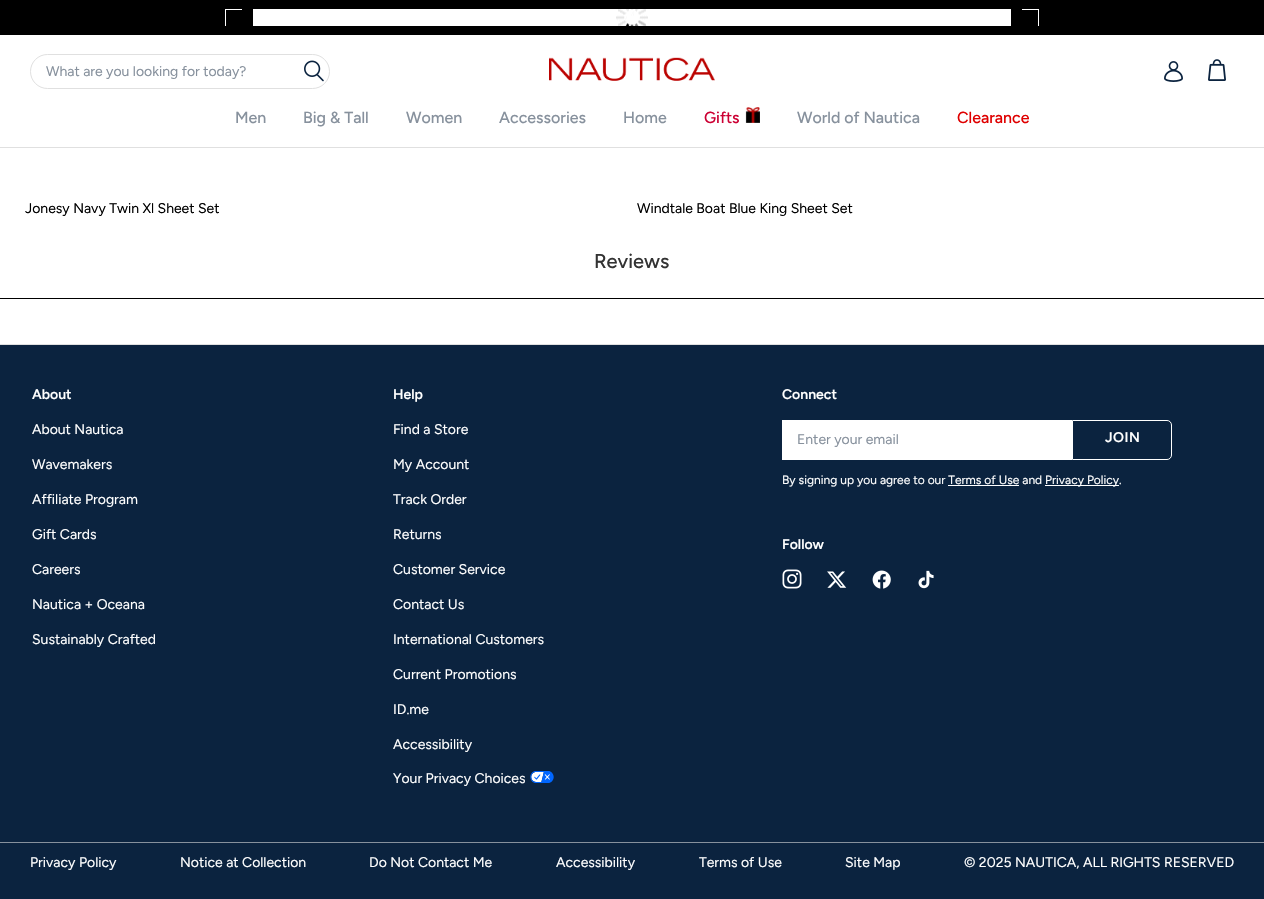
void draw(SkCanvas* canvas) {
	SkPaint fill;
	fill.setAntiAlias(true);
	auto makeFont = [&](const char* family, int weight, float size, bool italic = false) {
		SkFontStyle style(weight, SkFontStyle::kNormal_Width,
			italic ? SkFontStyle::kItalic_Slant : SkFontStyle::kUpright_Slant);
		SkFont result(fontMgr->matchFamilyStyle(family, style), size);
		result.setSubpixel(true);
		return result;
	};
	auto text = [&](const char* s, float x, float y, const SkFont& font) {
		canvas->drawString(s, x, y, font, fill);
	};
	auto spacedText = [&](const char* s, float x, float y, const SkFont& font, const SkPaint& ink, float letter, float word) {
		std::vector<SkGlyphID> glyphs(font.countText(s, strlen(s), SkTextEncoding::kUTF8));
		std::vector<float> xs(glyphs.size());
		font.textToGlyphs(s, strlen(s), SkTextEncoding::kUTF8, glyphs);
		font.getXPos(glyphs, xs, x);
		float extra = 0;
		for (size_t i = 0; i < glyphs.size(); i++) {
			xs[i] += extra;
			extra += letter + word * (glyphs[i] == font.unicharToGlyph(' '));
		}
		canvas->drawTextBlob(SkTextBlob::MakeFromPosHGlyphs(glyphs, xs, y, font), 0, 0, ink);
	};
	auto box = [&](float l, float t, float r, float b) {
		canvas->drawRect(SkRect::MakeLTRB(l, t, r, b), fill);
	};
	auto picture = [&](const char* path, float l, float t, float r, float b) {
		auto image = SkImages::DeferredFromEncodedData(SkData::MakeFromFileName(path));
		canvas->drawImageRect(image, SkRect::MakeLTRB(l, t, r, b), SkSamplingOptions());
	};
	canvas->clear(0xFFFFFFFF);
	fill.setColor(0xFF000000);
	box(0, 0, 1264, 35);
	fill.setColor(0xFFFFFFFF);
	box(225, 9, 242, 10);
	box(225, 9, 226, 26);
	box(253, 9, 1011, 26);
	picture("image0.png", 616, 9, 648, 26);
	box(1022, 9, 1039, 10);
	box(1038, 9, 1039, 26);
	fill.setColor(0xFFE0E0E0);
	box(0, 147, 1264, 148);
	fill.setStyle(SkPaint::kStroke_Style);
	fill.setStrokeWidth(1);
	canvas->drawRoundRect(SkRect::MakeLTRB(30.5f, 54.5f, 329.5f, 88.5f), 17, 17, fill);
	picture("image1.png", 304, 60, 324, 82);
	picture("image2.png", 549, 57, 715, 81);
	picture("image3.png", 1164, 61, 1183, 82);
	picture("image4.png", 1208, 59, 1226, 81);
	picture("image5.png", 745, 107, 760, 123);
	fill.setStyle(SkPaint::kFill_Style);
	fill.setColor(0xFF000000);
	box(0, 298, 1264, 299);
	fill.setColor(0xFF0B233F);
	box(0, 345, 1264, 899);
	fill.setColor(0xFFE0E0E0);
	box(0, 344, 1264, 345);
	picture("image6.png", 530, 771, 554, 783);
	fill.setColor(0xFFFFFFFF);
	box(782, 420, 1072, 460);
	fill.setStyle(SkPaint::kStroke_Style);
	canvas->drawPath(SkPathBuilder().moveTo(1072.5f, 420.5f).lineTo(1167, 420.5f).cubicTo(1169.5f, 420.5f, 1171.5f, 422.5f, 1171.5f, 425).lineTo(1171.5f, 455).cubicTo(1171.5f, 457.5f, 1169.5f, 459.5f, 1167, 459.5f).lineTo(1072.5f, 459.5f).close().detach(), fill);
	fill.setStyle(SkPaint::kFill_Style);
	box(1045, 485, 1119, 486);
	box(948, 485, 1019, 486);
	picture("image7.png", 782, 569, 802, 589);
	picture("image8.png", 827, 571, 847, 588);
	picture("image9.png", 872, 570, 891, 589);
	picture("image10.png", 918, 570, 934, 589);
	fill.setColor(0xFF87919D);
	box(0, 842, 1264, 843);
	auto font1 = makeFont("Figtree", 400, 14);
	text("What are you looking for today?", 46, 76, font1);
	auto font2 = makeFont("Figtree", 500, 16);
	text("Men", 235, 123, font2);
	text("Big & Tall", 303, 123, font2);
	text("Women", 406, 123, font2);
	text("Accessories", 499, 123, font2);
	text("Home", 623, 123, font2);
	fill.setColor(0xFFCC0033);
	text("Gifts", 704, 123, font2);
	fill.setColor(0xFF87919D);
	text("World of Nautica", 797, 123, font2);
	fill.setColor(0xFFDF0000);
	text("Clearance", 957, 123, font2);
	fill.setColor(0xFF000000);
	text("Jonesy Navy Twin Xl Sheet Set", 25, 213, font1);
	text("Windtale Boat Blue King Sheet Set", 637, 213, font1);
	auto font3 = makeFont("Figtree", 500, 20);
	fill.setColor(0xFF333333);
	text("Reviews", 594, 268, font3);
	auto font4 = makeFont("Figtree", 600, 14);
	fill.setColor(0xFFFFFFFF);
	text("About", 32, 399, font4);
	text("About Nautica", 32, 434, font1);
	text("Wavemakers", 32, 469, font1);
	text("Affiliate Program", 32, 504, font1);
	text("Gift Cards", 32, 539, font1);
	text("Careers", 32, 574, font1);
	text("Nautica + Oceana", 32, 609, font1);
	text("Sustainably Crafted", 32, 644, font1);
	text("Help", 393, 399, font4);
	text("Find a Store", 393, 434, font1);
	text("My Account", 393, 469, font1);
	text("Track Order", 393, 504, font1);
	text("Returns", 393, 539, font1);
	text("Customer Service", 393, 574, font1);
	text("Contact Us", 393, 609, font1);
	text("International Customers", 393, 644, font1);
	text("Current Promotions", 393, 679, font1);
	text("ID.me", 393, 714, font1);
	text("Accessibility", 393, 749, font1);
	text("Your Privacy Choices", 393, 783, font1);
	text("Connect", 782, 399, font4);
	fill.setColor(0xFF87919D);
	text("Enter your email", 797, 444, font1);
	fill.setColor(0xFFFFFFFF);
	spacedText("JOIN", 1105, 442, font4, fill, 0.5f, 0);
	auto font5 = makeFont("Figtree", 400, 12);
	text("By signing up you agree to our Terms of Use and", 782, 484, font5);
	text("Privacy Policy.", 1045, 484, font5);
	text("Follow", 782, 549, font4);
	text("Privacy Policy", 30, 867, font1);
	text("Notice at Collection", 180, 867, font1);
	text("Do Not Contact Me", 369, 867, font1);
	text("Accessibility", 556, 867, font1);
	text("Terms of Use", 699, 867, font1);
	text("Site Map", 845, 867, font1);
	text("© 2025 NAUTICA, ALL RIGHTS RESERVED", 964, 867, font1);
}
